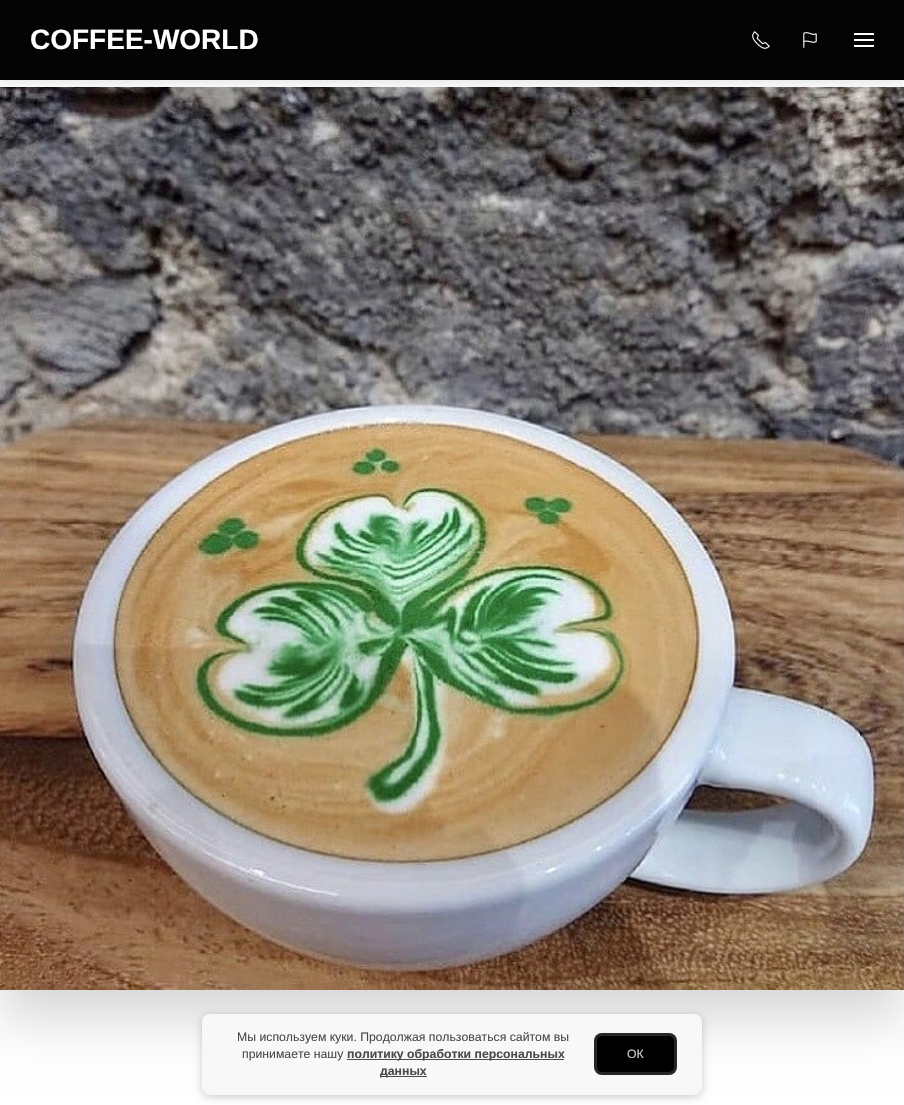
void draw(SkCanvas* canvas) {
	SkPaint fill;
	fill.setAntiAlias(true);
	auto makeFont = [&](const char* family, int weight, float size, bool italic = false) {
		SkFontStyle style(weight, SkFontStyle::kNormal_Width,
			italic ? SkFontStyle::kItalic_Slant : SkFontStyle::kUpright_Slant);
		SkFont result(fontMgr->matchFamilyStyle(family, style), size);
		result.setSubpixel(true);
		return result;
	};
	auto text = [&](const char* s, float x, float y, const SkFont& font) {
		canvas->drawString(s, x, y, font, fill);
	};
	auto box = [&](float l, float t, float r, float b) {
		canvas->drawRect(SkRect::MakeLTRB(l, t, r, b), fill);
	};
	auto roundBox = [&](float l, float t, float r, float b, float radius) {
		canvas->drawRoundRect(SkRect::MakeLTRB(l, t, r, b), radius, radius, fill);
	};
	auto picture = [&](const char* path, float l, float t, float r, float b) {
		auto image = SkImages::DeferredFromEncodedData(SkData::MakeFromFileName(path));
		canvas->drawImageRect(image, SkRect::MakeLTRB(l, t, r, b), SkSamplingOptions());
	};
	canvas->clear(0xFFFFFFFF);
	fill.setColor(0x29000000);
	fill.setMaskFilter(SkMaskFilter::MakeBlur(kNormal_SkBlurStyle, 25));
	canvas->drawRect(SkRect::MakeLTRB(0, 115, 904, 1018), fill);
	fill.setMaskFilter(nullptr);
	picture("image2.png", 0, 87, 904, 990);
	fill.setColor(0x14000000);
	fill.setMaskFilter(SkMaskFilter::MakeBlur(kNormal_SkBlurStyle, 4));
	canvas->drawRect(SkRect::MakeLTRB(0, 2, 904, 82), fill);
	fill.setMaskFilter(nullptr);
	fill.setColor(0xFF040404);
	box(0, 0, 904, 80);
	picture("image0.png", 752, 31, 770, 49);
	picture("image1.png", 803, 32, 817, 48);
	fill.setColor(0xFFFFFFFF);
	box(854, 33, 874, 35);
	box(854, 39, 874, 41);
	box(854, 45, 874, 47);
	fill.setColor(0x33000000);
	fill.setMaskFilter(SkMaskFilter::MakeBlur(kNormal_SkBlurStyle, 4));
	canvas->drawRoundRect(SkRect::MakeLTRB(202, 1016, 702, 1097), 8, 8, fill);
	fill.setMaskFilter(nullptr);
	fill.setColor(0xFFF8F8F8);
	roundBox(202, 1014, 702, 1095, 8);
	fill.setColor(0xFF4A4A4A);
	box(347, 1059, 564, 1060);
	box(380, 1076, 427, 1077);
	fill.setColor(0xFF000000);
	roundBox(594, 1033, 677, 1075, 8);
	fill.setStyle(SkPaint::kStroke_Style);
	fill.setStrokeWidth(3);
	fill.setColor(0x26FFFFFF);
	canvas->drawRoundRect(SkRect::MakeLTRB(595.5f, 1034.5f, 675.5f, 1073.5f), 6.5f, 6.5f, fill);
	auto font1 = makeFont("Liberation Sans", 700, 28);
	fill.setStyle(SkPaint::kFill_Style);
	fill.setColor(0xFFFFFFFF);
	text("COFFEE-WORLD", 30, 49, font1);
	auto font2 = makeFont("Liberation Sans", 400, 12.25f);
	fill.setColor(0xFF4A4A4A);
	text("Мы используем куки. Продолжая пользоваться сайтом вы", 237, 1041, font2);
	text("принимаете нашу", 242, 1058, font2);
	auto font3 = makeFont("Liberation Sans", 700, 12.25f);
	text("политику обработки персональных", 347, 1058, font3);
	text("данных", 380, 1075, font3);
	fill.setColor(0xFFCCCCCC);
	text("ОК", 627, 1058, font2);
}
